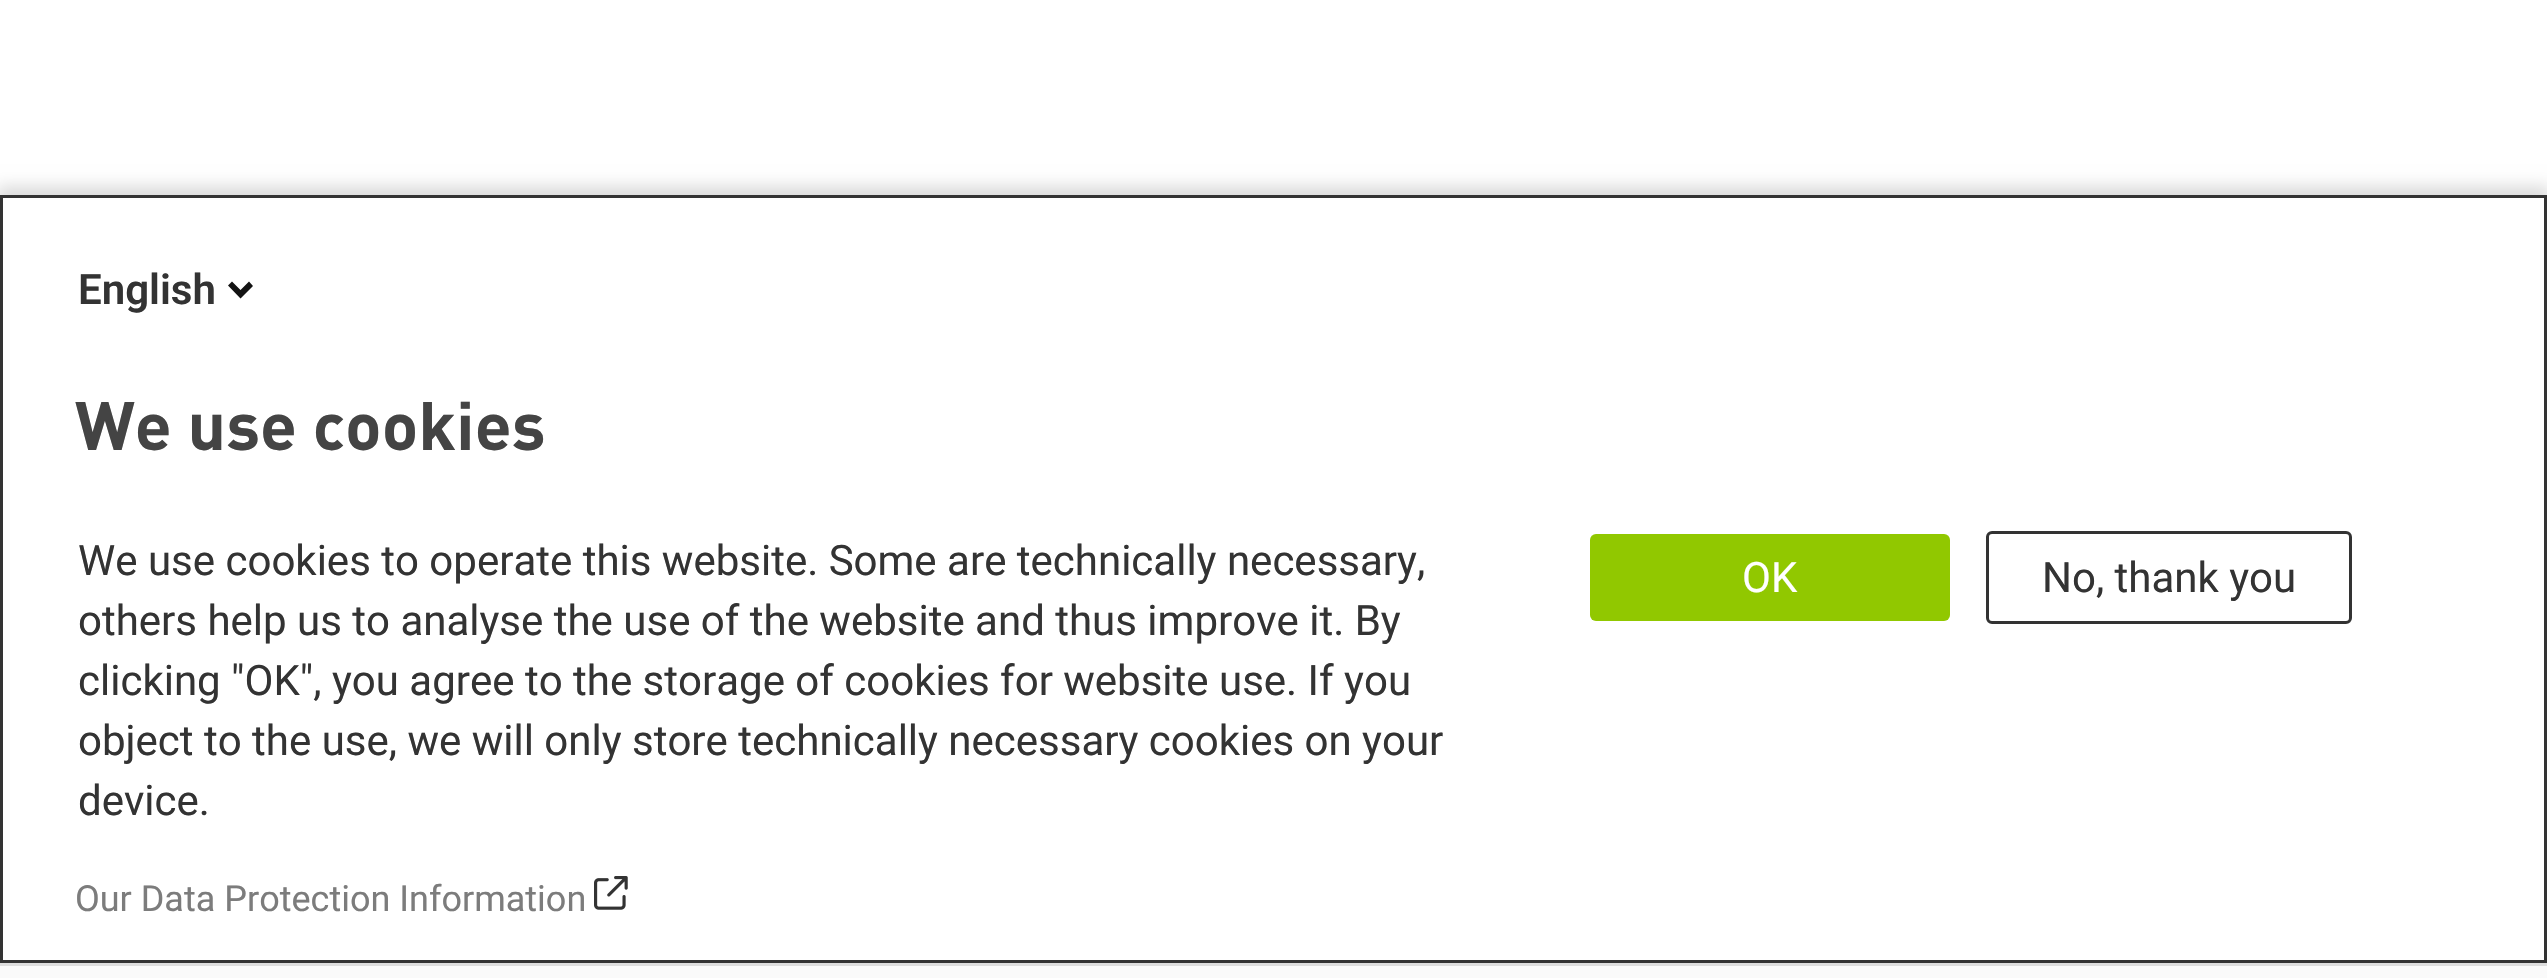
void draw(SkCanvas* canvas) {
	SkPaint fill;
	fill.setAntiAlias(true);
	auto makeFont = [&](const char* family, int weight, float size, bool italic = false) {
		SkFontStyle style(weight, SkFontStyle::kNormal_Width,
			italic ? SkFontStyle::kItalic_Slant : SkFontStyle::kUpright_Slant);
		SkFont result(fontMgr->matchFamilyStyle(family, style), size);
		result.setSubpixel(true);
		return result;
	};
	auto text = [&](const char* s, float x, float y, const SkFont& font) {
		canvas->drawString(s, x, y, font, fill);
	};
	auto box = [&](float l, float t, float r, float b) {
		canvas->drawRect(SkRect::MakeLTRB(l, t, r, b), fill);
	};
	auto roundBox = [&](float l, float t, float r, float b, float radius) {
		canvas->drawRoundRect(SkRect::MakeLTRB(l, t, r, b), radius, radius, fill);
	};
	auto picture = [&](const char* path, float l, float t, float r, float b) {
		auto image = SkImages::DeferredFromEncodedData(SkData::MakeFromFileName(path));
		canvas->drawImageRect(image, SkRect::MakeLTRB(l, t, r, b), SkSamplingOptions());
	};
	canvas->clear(0xFFFFFFFF);
	fill.setColor(0x24000000);
	fill.setMaskFilter(SkMaskFilter::MakeBlur(kNormal_SkBlurStyle, 7.5f));
	canvas->drawRect(SkRect::MakeLTRB(-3, 186, 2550, 975), fill);
	fill.setMaskFilter(nullptr);
	fill.setColor(0xFFFFFFFF);
	canvas->drawRect(SkRect::MakeLTRB(1.5f, 196.5f, 2545.5f, 961.5f), fill);
	fill.setStyle(SkPaint::kStroke_Style);
	fill.setStrokeWidth(3);
	fill.setColor(0xFF333333);
	canvas->drawRect(SkRect::MakeLTRB(1.5f, 196.5f, 2545.5f, 961.5f), fill);
	fill.setStyle(SkPaint::kFill_Style);
	fill.setColor(0xFF131313);
	canvas->drawPath(SkPathBuilder().moveTo(240.5f, 290).lineTo(249, 281.5f).lineTo(253, 286).lineTo(240.5f, 298.5f).lineTo(228, 285.5f).lineTo(232, 281.5f).close().detach(), fill);
	picture("image0.png", 594, 876, 628, 910);
	fill.setColor(0xFF91C800);
	roundBox(1590, 534, 1950, 621, 6);
	fill.setStyle(SkPaint::kStroke_Style);
	fill.setColor(0xFF333333);
	canvas->drawRoundRect(SkRect::MakeLTRB(1987.5f, 532.5f, 2350.5f, 622.5f), 4.5f, 4.5f, fill);
	fill.setStyle(SkPaint::kFill_Style);
	fill.setColor(0xFFFAFAFA);
	box(0, 966, 2547, 978);
	fill.setColor(0xFFDDDDDD);
	box(0, 963, 2547, 966);
	auto font1 = makeFont("Roboto", 600, 42);
	fill.setColor(0xFF333333);
	text("English", 78, 304, font1);
	auto font2 = makeFont("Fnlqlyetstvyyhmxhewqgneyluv", 700, 67.5f);
	fill.setColor(0xFF444444);
	text("We use cookies", 75, 450, font2);
	auto font3 = makeFont("Roboto", 400, 42);
	fill.setColor(0xFF333333);
	text("We use cookies to operate this website. Some are technically necessary,", 78, 575, font3);
	text("others help us to analyse the use of the website and thus improve it. By", 78, 635, font3);
	text("clicking \"OK\", you agree to the storage of cookies for website use. If you", 78, 695, font3);
	text("object to the use, we will only store technically necessary cookies on your", 78, 755, font3);
	text("device.", 78, 815, font3);
	auto font4 = makeFont("Roboto", 400, 36);
	fill.setColor(0xFF7C7C7C);
	text("Our Data Protection Information", 75, 911, font4);
	fill.setColor(0xFFFFFFFF);
	text("OK", 1742, 592, font3);
	fill.setColor(0xFF333333);
	text("No, thank you", 2042, 592, font3);
}
